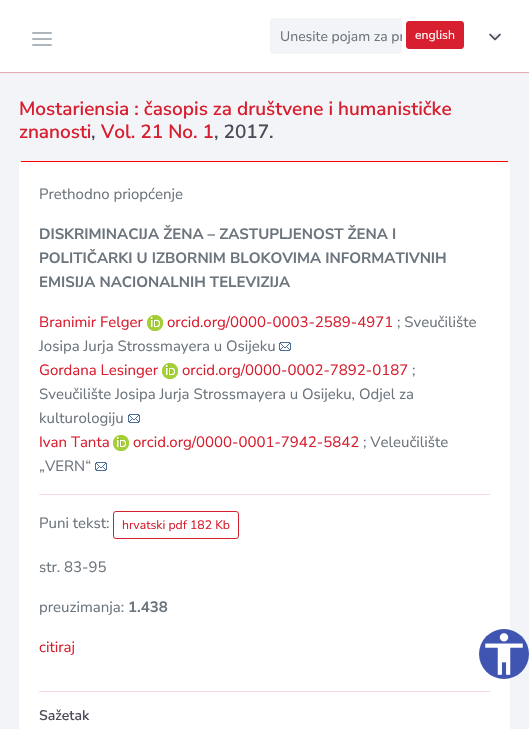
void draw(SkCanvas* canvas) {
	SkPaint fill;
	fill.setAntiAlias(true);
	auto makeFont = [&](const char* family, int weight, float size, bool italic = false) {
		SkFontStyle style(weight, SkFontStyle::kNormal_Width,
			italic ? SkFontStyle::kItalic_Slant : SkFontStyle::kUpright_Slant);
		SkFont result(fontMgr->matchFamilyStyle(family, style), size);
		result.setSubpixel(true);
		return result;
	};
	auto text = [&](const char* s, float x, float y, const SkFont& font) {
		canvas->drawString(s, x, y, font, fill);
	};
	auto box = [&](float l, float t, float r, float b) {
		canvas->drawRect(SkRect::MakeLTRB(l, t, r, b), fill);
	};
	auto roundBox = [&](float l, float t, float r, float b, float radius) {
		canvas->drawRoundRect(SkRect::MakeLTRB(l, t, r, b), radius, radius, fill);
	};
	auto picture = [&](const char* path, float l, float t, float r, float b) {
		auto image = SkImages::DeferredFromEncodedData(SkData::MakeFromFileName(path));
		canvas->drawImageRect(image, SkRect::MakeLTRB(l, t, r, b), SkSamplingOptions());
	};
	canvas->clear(0xFFF3F4F7);
	fill.setColor(0xFFF1B1B6);
	box(0, 72, 529, 73);
	fill.setColor(0x124B4B5A);
	fill.setMaskFilter(SkMaskFilter::MakeBlur(kNormal_SkBlurStyle, 0.5f));
	canvas->drawRect(SkRect::MakeLTRB(0, 1, 529, 73), fill);
	fill.setMaskFilter(nullptr);
	fill.setColor(0xFFFFFFFF);
	box(0, 0, 529, 72);
	fill.setStyle(SkPaint::kStroke_Style);
	fill.setStrokeWidth(2);
	fill.setStrokeCap(SkPaint::kRound_Cap);
	fill.setStrokeJoin(SkPaint::kRound_Join);
	fill.setColor(0xFFADB5BD);
	canvas->drawPath(SkPathBuilder().moveTo(33, 39).lineTo(51, 39).moveTo(33, 33).lineTo(51, 33).moveTo(33, 45).lineTo(51, 45).detach(), fill);
	fill.setStyle(SkPaint::kFill_Style);
	fill.setColor(0xFFF3F4F7);
	roundBox(270, 18, 402, 54, 4);
	fill.setColor(0xFFD81F30);
	canvas->drawRoundRect(SkRect::MakeLTRB(406.5f, 21.5f, 463.5f, 48.5f), 2.5f, 2.5f, fill);
	fill.setStyle(SkPaint::kStroke_Style);
	fill.setStrokeWidth(1);
	fill.setStrokeCap(SkPaint::kButt_Cap);
	fill.setStrokeJoin(SkPaint::kMiter_Join);
	canvas->drawRoundRect(SkRect::MakeLTRB(406.5f, 21.5f, 463.5f, 48.5f), 2.5f, 2.5f, fill);
	picture("image0.png", 489, 33, 501, 41);
	fill.setStyle(SkPaint::kFill_Style);
	fill.setColor(0xFFFFFFFF);
	roundBox(19, 161, 510, 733, 4);
	fill.setColor(0xFFFF0000);
	box(21, 161, 508, 162);
	picture("image1.png", 147, 315, 163, 331);
	picture("image2.png", 279, 342, 291, 351);
	picture("image1.png", 162, 363, 178, 379);
	picture("image2.png", 128, 414, 140, 423);
	picture("image1.png", 113, 435, 129, 451);
	picture("image2.png", 95, 462, 107, 471);
	fill.setColor(0xFFF8D9DC);
	box(39, 494, 490, 495);
	fill.setStyle(SkPaint::kStroke_Style);
	fill.setColor(0xFFD81F30);
	canvas->drawRoundRect(SkRect::MakeLTRB(113.5f, 511.5f, 238.5f, 538.5f), 2.5f, 2.5f, fill);
	fill.setStyle(SkPaint::kFill_Style);
	fill.setColor(0xFFF8D9DC);
	box(39, 691, 490, 692);
	fill.setColor(0xFF4054B2);
	canvas->drawCircle(504, 654, 25, fill);
	picture("image3.png", 485, 633, 523, 675);
	canvas->save();
	canvas->clipPath(SkPathBuilder().moveTo(274, 18).lineTo(398, 18).cubicTo(400, 18, 402, 20, 402, 22).lineTo(402, 50).cubicTo(402, 52, 400, 54, 398, 54).lineTo(274, 54).cubicTo(272, 54, 270, 52, 270, 50).lineTo(270, 22).cubicTo(270, 20, 272, 18, 274, 18).close().detach(), true);
	auto font1 = makeFont("Nunito Sans", 400, 14);
	fill.setColor(0xFF6C757D);
	text("Unesite pojam za pr", 280, 41, font1);
	canvas->restore();
	auto font2 = makeFont("Nunito Sans", 400, 12.25f);
	fill.setColor(0xFFFFFFFF);
	text("english", 415, 39, font2);
	auto font3 = makeFont("Nunito Sans", 600, 19);
	fill.setColor(0xFFD81F30);
	text("Mostariensia : časopis za društvene i humanističke", 19, 115, font3);
	text("znanosti", 19, 138, font3);
	fill.setColor(0xFF4B4B5A);
	text(",", 91, 138, font3);
	fill.setColor(0xFFD81F30);
	text("Vol. 21 No. 1", 101, 138, font3);
	fill.setColor(0xFF4B4B5A);
	text(", 2017.", 214, 138, font3);
	auto font4 = makeFont("Nunito Sans", 400, 15);
	fill.setColor(0xFF6C757D);
	text("Prethodno priopćenje", 39, 199, font4);
	auto font5 = makeFont("Nunito Sans", 700, 15);
	text("DISKRIMINACIJA ŽENA – ZASTUPLJENOST ŽENA I", 39, 239, font5);
	text("POLITIČARKI U IZBORNIM BLOKOVIMA INFORMATIVNIH", 39, 263, font5);
	text("EMISIJA NACIONALNIH TELEVIZIJA", 39, 287, font5);
	fill.setColor(0xFFD81F30);
	text("Branimir Felger", 39, 327, font4);
	text("orcid.org/0000-0003-2589-4971", 167, 327, font4);
	fill.setColor(0xFF6C757D);
	text("; Sveučilište", 397, 327, font4);
	text("Josipa Jurja Strossmayera u Osijeku", 39, 351, font4);
	fill.setColor(0xFFD81F30);
	text("Gordana Lesinger", 39, 375, font4);
	text("orcid.org/0000-0002-7892-0187", 182, 375, font4);
	fill.setColor(0xFF6C757D);
	text(";", 412, 375, font4);
	text("Sveučilište Josipa Jurja Strossmayera u Osijeku, Odjel za", 39, 399, font4);
	text("kulturologiju", 39, 423, font4);
	fill.setColor(0xFFD81F30);
	text("Ivan Tanta", 39, 447, font4);
	text("orcid.org/0000-0001-7942-5842", 133, 447, font4);
	fill.setColor(0xFF6C757D);
	text("; Veleučilište", 363, 447, font4);
	text("„VERN“", 39, 471, font4);
	text("Puni tekst:", 39, 528, font4);
	fill.setColor(0xFFD81F30);
	text("hrvatski pdf 182 Kb", 122, 529, font2);
	fill.setColor(0xFF6C757D);
	text("str. 83-95", 39, 572, font4);
	text("preuzimanja:", 39, 612, font4);
	text("1.438", 128, 612, font5);
	fill.setColor(0xFFD81F30);
	text("citiraj", 39, 652, font4);
	auto font6 = makeFont("Nunito Sans", 600, 14);
	fill.setColor(0xFF4B4B5A);
	text("Sažetak", 39, 720, font6);
}
